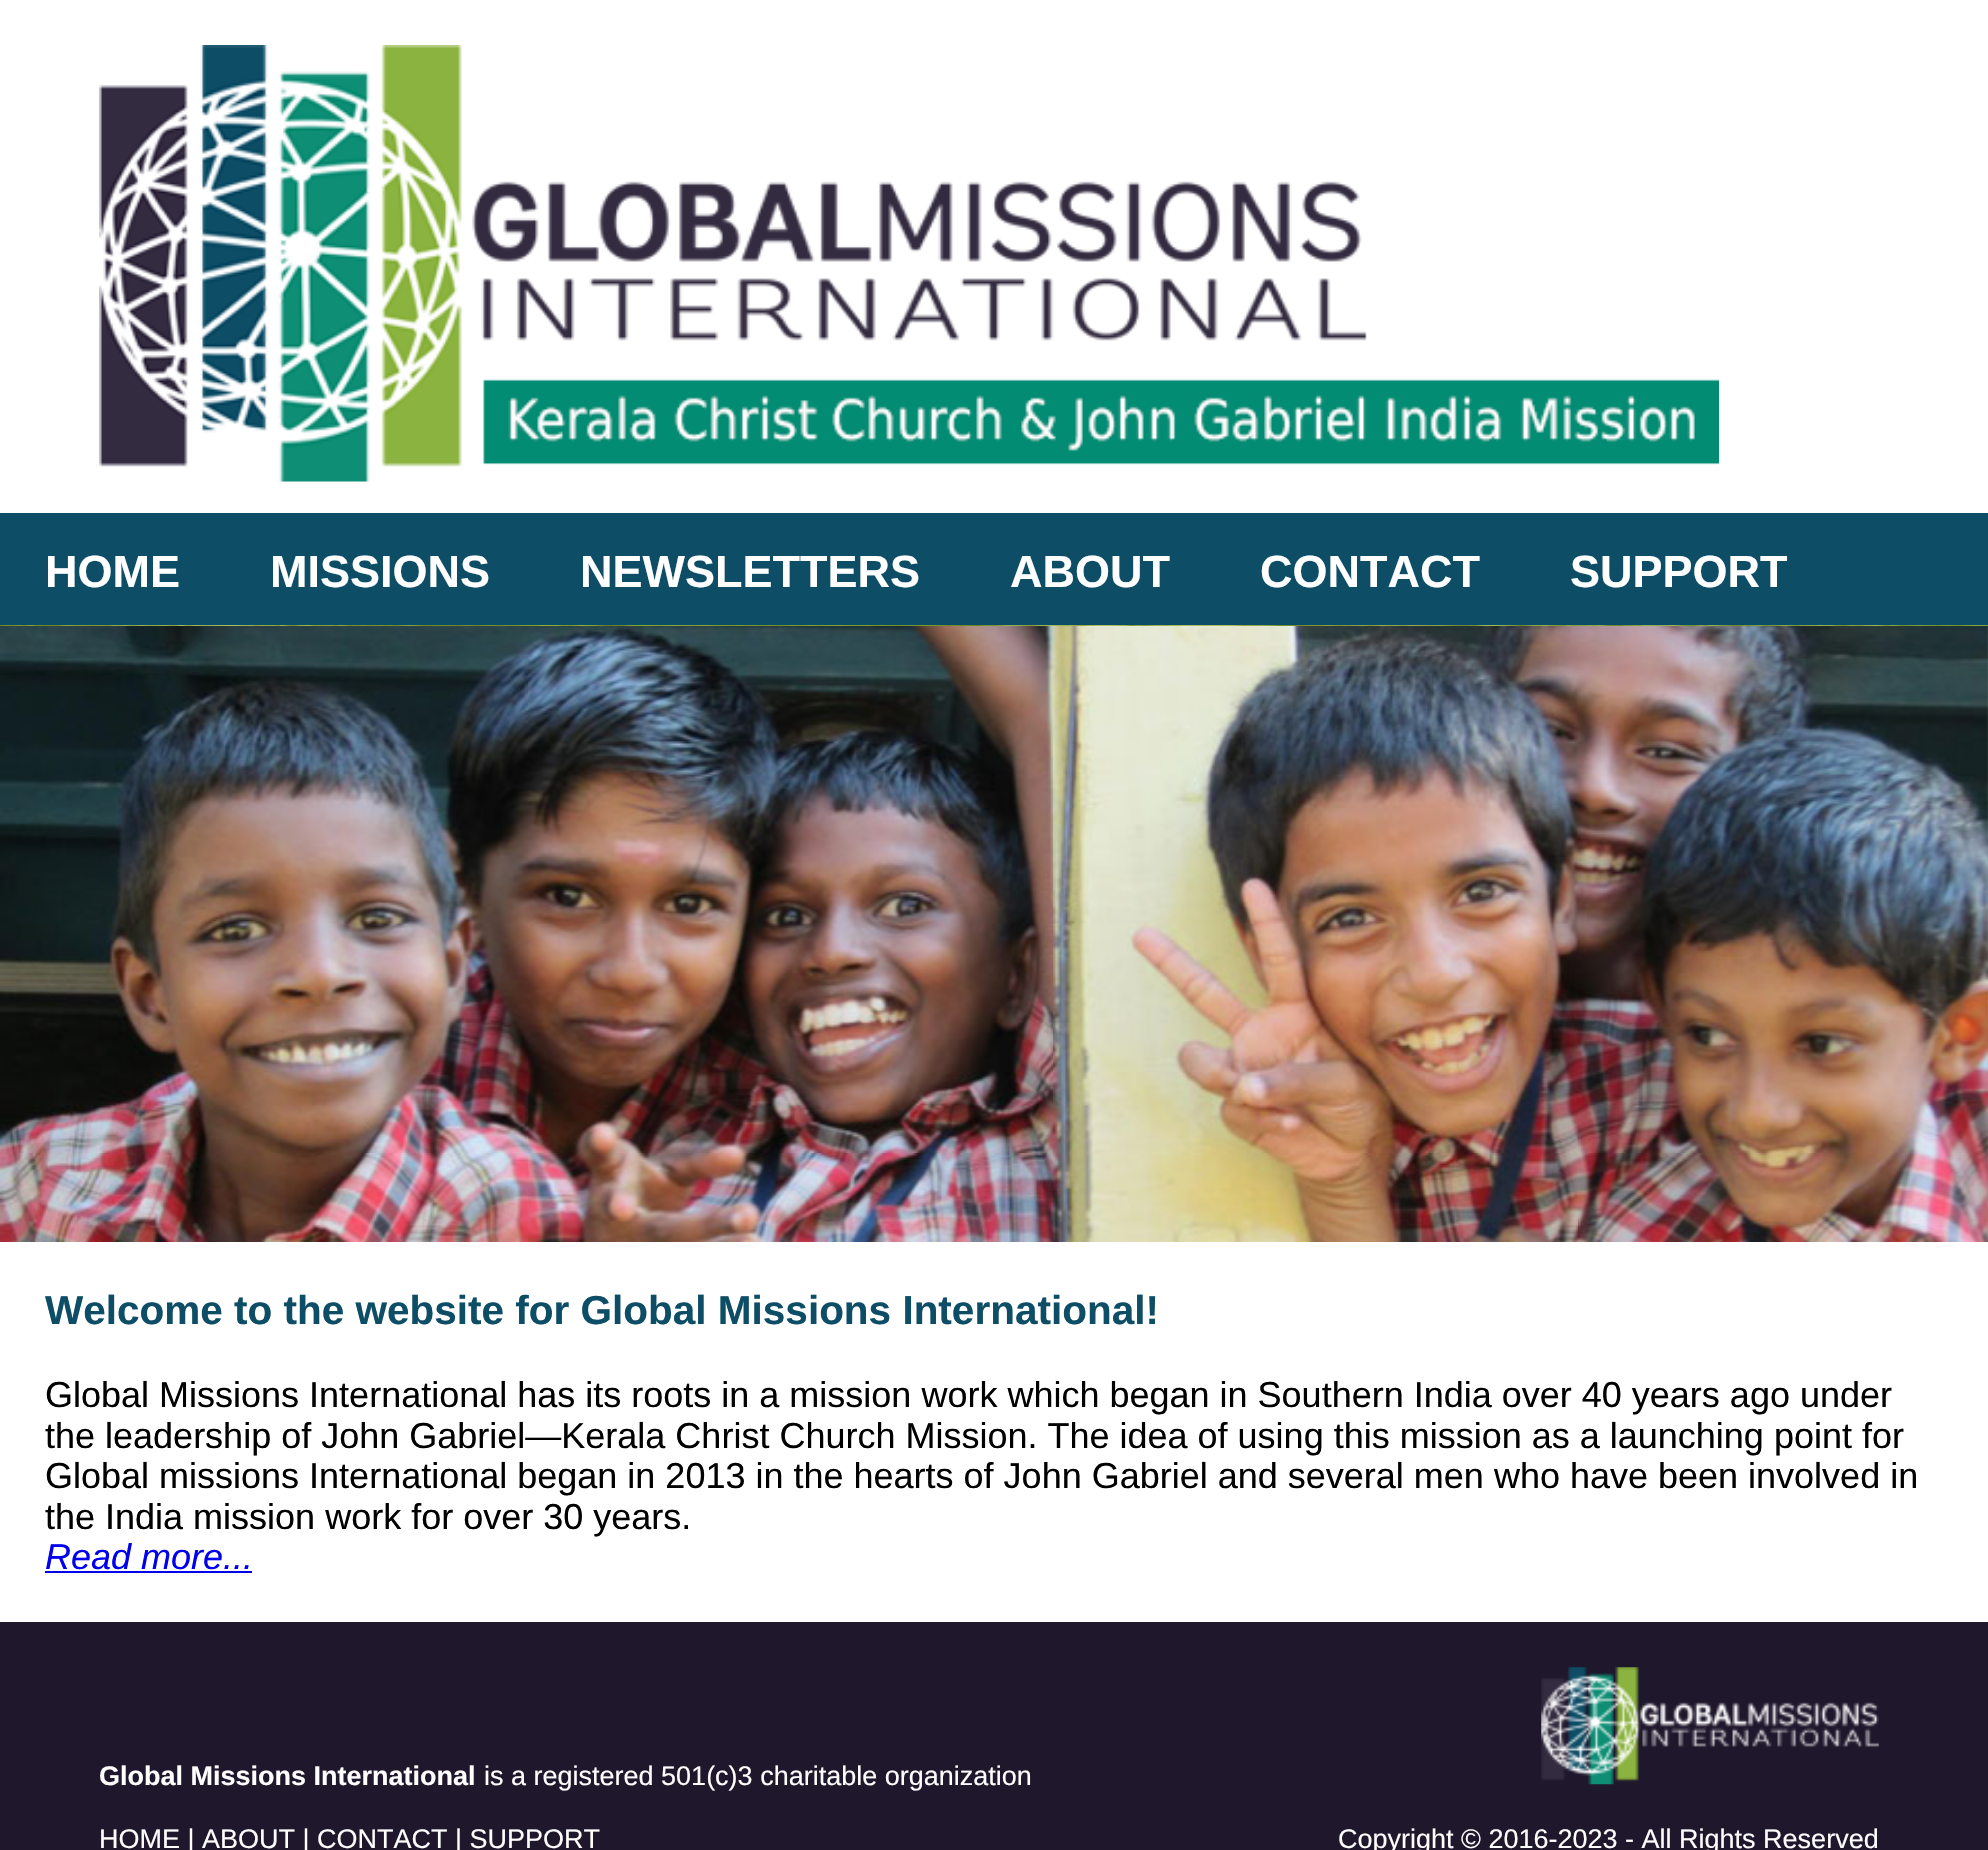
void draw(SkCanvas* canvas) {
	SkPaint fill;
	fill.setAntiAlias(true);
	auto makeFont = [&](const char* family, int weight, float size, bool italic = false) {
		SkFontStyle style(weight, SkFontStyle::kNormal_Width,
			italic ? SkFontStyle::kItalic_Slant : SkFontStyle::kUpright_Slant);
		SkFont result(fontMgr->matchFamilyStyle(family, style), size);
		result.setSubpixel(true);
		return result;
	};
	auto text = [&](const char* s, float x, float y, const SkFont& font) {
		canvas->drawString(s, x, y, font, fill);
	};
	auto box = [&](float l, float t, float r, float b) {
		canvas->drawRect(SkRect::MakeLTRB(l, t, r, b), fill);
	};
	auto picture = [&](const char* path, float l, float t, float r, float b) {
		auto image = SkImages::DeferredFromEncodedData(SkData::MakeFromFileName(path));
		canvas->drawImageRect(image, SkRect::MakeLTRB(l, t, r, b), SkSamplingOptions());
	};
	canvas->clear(0xFFFFFFFF);
	picture("image0.png", 99, 45, 1719, 482);
	fill.setColor(0xFF0D4D66);
	box(0, 513, 1988, 625);
	picture("image1.png", 0, 625, 1988, 1242);
	picture("image2.png", 0, 626, 1988, 1242);
	fill.setColor(0xFF0000EE);
	box(45, 1571, 252, 1573);
	fill.setColor(0xFF1F172C);
	box(0, 1622, 1988, 1850);
	picture("image3.png", 1541, 1667, 1879, 1785);
	auto font1 = makeFont("Liberation Sans", 700, 45);
	fill.setColor(0xFFFFFFFF);
	text("HOME", 45, 587, font1);
	text("MISSIONS", 270, 587, font1);
	text("NEWSLETTERS", 580, 587, font1);
	text("ABOUT", 1010, 587, font1);
	text("CONTACT", 1260, 587, font1);
	text("SUPPORT", 1570, 587, font1);
	auto font2 = makeFont("Liberation Sans", 700, 40.5f);
	fill.setColor(0xFF0D4D66);
	text("Welcome to the website for Global Missions International!", 45, 1324, font2);
	auto font3 = makeFont("Liberation Sans", 400, 36);
	fill.setColor(0xFF000000);
	text("Global Missions International has its roots in a mission work which began in Southern India over 40 years ago under", 45, 1407, font3);
	text("the leadership of John Gabriel—Kerala Christ Church Mission. The idea of using this mission as a launching point for", 45, 1448, font3);
	text("Global missions International began in 2013 in the hearts of John Gabriel and several men who have been involved in", 45, 1488, font3);
	text("the India mission work for over 30 years.", 45, 1529, font3);
	auto font4 = makeFont("Liberation Sans", 400, 36, true);
	fill.setColor(0xFF0000EE);
	text("Read more...", 45, 1569, font4);
	auto font5 = makeFont("Liberation Sans", 700, 27);
	fill.setColor(0xFFFFFFFF);
	text("Global Missions International", 99, 1785, font5);
	auto font6 = makeFont("Liberation Sans", 400, 27);
	text("is a registered 501(c)3 charitable organization", 484, 1785, font6);
	text("HOME | ABOUT | CONTACT | SUPPORT", 99, 1848, font6);
	text("Copyright © 2016-2023 - All Rights Reserved", 1338, 1848, font6);
}
